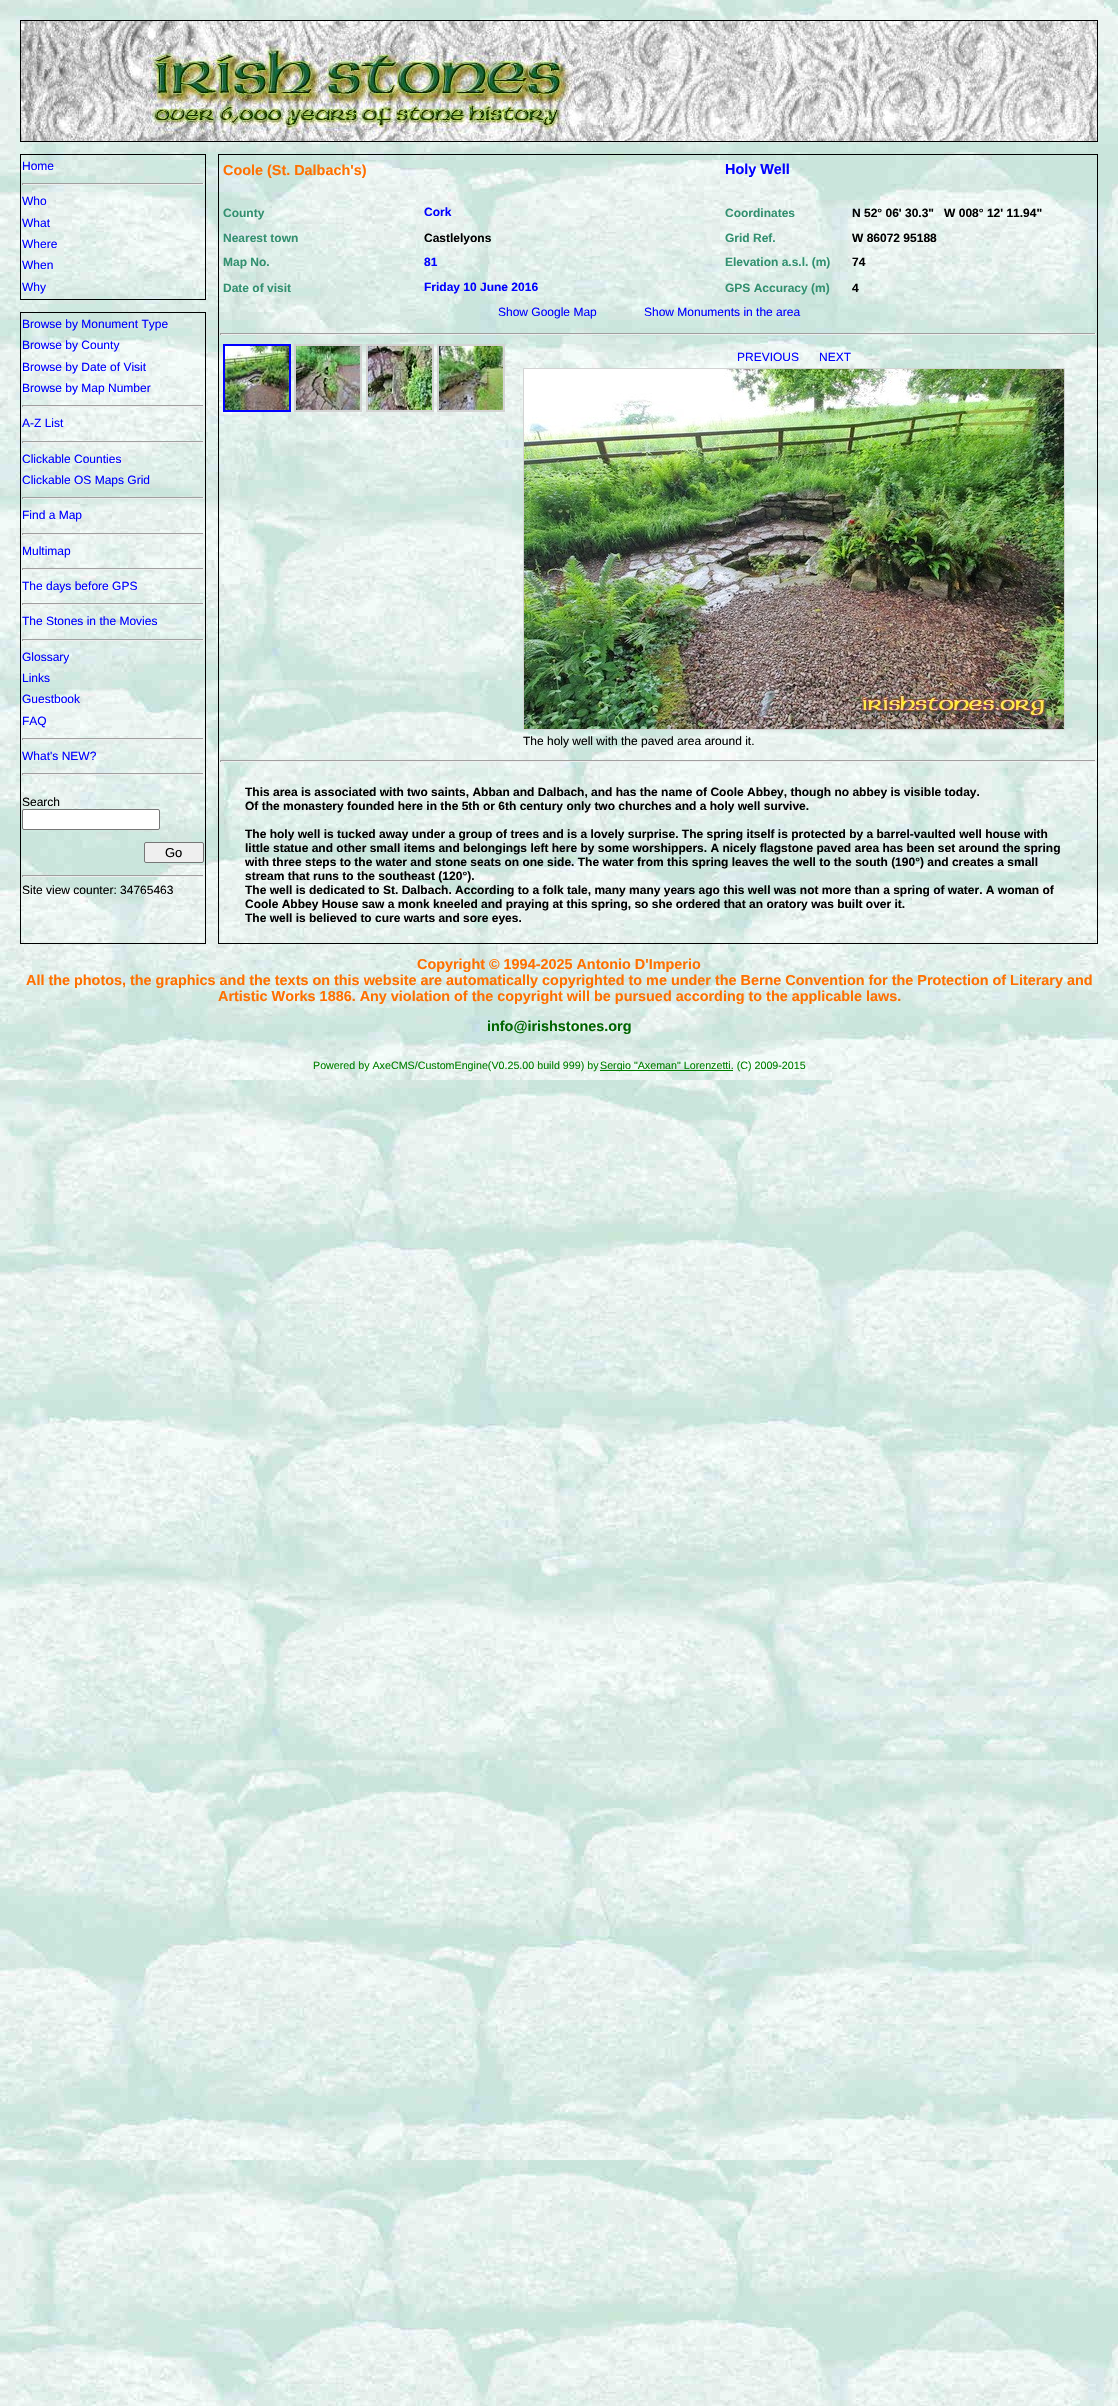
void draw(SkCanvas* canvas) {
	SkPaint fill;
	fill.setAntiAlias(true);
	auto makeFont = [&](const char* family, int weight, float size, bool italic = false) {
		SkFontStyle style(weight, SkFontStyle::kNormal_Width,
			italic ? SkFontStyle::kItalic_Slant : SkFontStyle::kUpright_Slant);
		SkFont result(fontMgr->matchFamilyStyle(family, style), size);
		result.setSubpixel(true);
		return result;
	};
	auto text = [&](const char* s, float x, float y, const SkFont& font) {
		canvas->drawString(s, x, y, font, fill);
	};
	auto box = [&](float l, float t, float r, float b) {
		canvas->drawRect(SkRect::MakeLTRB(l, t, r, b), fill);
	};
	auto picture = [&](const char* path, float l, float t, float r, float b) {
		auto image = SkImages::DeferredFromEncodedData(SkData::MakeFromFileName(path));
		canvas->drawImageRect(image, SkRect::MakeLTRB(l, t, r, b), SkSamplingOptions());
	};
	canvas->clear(0xFFFFFFFF);
	picture("image0.png", 0, 0, 1118, 2406);
	picture("image1.png", 21, 21, 1097, 141);
	fill.setStyle(SkPaint::kStroke_Style);
	fill.setStrokeWidth(1);
	fill.setColor(0xFF000000);
	canvas->drawRect(SkRect::MakeLTRB(20.5f, 20.5f, 1097.5f, 141.5f), fill);
	canvas->drawRect(SkRect::MakeLTRB(20.5f, 154.5f, 205.5f, 299.5f), fill);
	fill.setStyle(SkPaint::kFill_Style);
	fill.setColor(0xFF9F9F9F);
	box(22, 183, 204, 184);
	fill.setColor(0xFFEEEEEE);
	box(203, 183, 204, 185);
	box(22, 184, 204, 185);
	fill.setColor(0xFF9F9F9F);
	box(22, 183, 23, 185);
	fill.setStyle(SkPaint::kStroke_Style);
	fill.setColor(0xFF000000);
	canvas->drawRect(SkRect::MakeLTRB(218.5f, 154.5f, 1097.5f, 943.5f), fill);
	fill.setStyle(SkPaint::kFill_Style);
	fill.setColor(0xFF9F9F9F);
	box(220, 333, 1096, 334);
	fill.setColor(0xFFEEEEEE);
	box(1095, 333, 1096, 335);
	box(220, 334, 1096, 335);
	fill.setColor(0xFF9F9F9F);
	box(220, 333, 221, 335);
	fill.setStyle(SkPaint::kStroke_Style);
	fill.setStrokeWidth(2);
	fill.setColor(0xFF0000FF);
	canvas->drawRect(SkRect::MakeLTRB(224, 345, 290, 411), fill);
	fill.setColor(0xFFD3D3D3);
	canvas->drawRect(SkRect::MakeLTRB(295, 345, 361, 411), fill);
	canvas->drawRect(SkRect::MakeLTRB(367, 345, 433, 411), fill);
	canvas->drawRect(SkRect::MakeLTRB(438, 345, 504, 411), fill);
	picture("image2.png", 225, 346, 289, 410);
	picture("image3.png", 296, 346, 360, 410);
	picture("image4.png", 368, 346, 432, 410);
	picture("image5.png", 439, 346, 503, 410);
	fill.setStrokeWidth(1);
	canvas->drawRect(SkRect::MakeLTRB(523.5f, 368.5f, 1064.5f, 729.5f), fill);
	picture("image6.png", 524, 369, 1064, 729);
	fill.setStyle(SkPaint::kFill_Style);
	fill.setColor(0xFF9F9F9F);
	box(220, 760, 1096, 761);
	fill.setColor(0xFFEEEEEE);
	box(1095, 760, 1096, 762);
	box(220, 761, 1096, 762);
	fill.setColor(0xFF9F9F9F);
	box(220, 760, 221, 762);
	fill.setStyle(SkPaint::kStroke_Style);
	fill.setColor(0xFF000000);
	canvas->drawRect(SkRect::MakeLTRB(20.5f, 312.5f, 205.5f, 943.5f), fill);
	fill.setStyle(SkPaint::kFill_Style);
	fill.setColor(0xFF9F9F9F);
	box(22, 405, 204, 406);
	fill.setColor(0xFFEEEEEE);
	box(203, 405, 204, 407);
	box(22, 406, 204, 407);
	fill.setColor(0xFF9F9F9F);
	box(22, 405, 23, 407);
	box(22, 441, 204, 442);
	fill.setColor(0xFFEEEEEE);
	box(203, 441, 204, 443);
	box(22, 442, 204, 443);
	fill.setColor(0xFF9F9F9F);
	box(22, 441, 23, 443);
	box(22, 497, 204, 498);
	fill.setColor(0xFFEEEEEE);
	box(203, 497, 204, 499);
	box(22, 498, 204, 499);
	fill.setColor(0xFF9F9F9F);
	box(22, 497, 23, 499);
	box(22, 533, 204, 534);
	fill.setColor(0xFFEEEEEE);
	box(203, 533, 204, 535);
	box(22, 534, 204, 535);
	fill.setColor(0xFF9F9F9F);
	box(22, 533, 23, 535);
	box(22, 568, 204, 569);
	fill.setColor(0xFFEEEEEE);
	box(203, 568, 204, 570);
	box(22, 569, 204, 570);
	fill.setColor(0xFF9F9F9F);
	box(22, 568, 23, 570);
	box(22, 603, 204, 604);
	fill.setColor(0xFFEEEEEE);
	box(203, 603, 204, 605);
	box(22, 604, 204, 605);
	fill.setColor(0xFF9F9F9F);
	box(22, 603, 23, 605);
	box(22, 639, 204, 640);
	fill.setColor(0xFFEEEEEE);
	box(203, 639, 204, 641);
	box(22, 640, 204, 641);
	fill.setColor(0xFF9F9F9F);
	box(22, 639, 23, 641);
	box(22, 738, 204, 739);
	fill.setColor(0xFFEEEEEE);
	box(203, 738, 204, 740);
	box(22, 739, 204, 740);
	fill.setColor(0xFF9F9F9F);
	box(22, 738, 23, 740);
	box(22, 773, 204, 774);
	fill.setColor(0xFFEEEEEE);
	box(203, 773, 204, 775);
	box(22, 774, 204, 775);
	fill.setColor(0xFF9F9F9F);
	box(22, 773, 23, 775);
	fill.setColor(0xFFFFFFFF);
	canvas->drawRoundRect(SkRect::MakeLTRB(22.5f, 809.5f, 159.5f, 829.5f), 1.5f, 1.5f, fill);
	fill.setStyle(SkPaint::kStroke_Style);
	fill.setColor(0xFF767676);
	canvas->drawRoundRect(SkRect::MakeLTRB(22.5f, 809.5f, 159.5f, 829.5f), 1.5f, 1.5f, fill);
	fill.setStyle(SkPaint::kFill_Style);
	fill.setColor(0xFFEFEFEF);
	canvas->drawRoundRect(SkRect::MakeLTRB(144.5f, 842.5f, 203.5f, 862.5f), 1.5f, 1.5f, fill);
	fill.setStyle(SkPaint::kStroke_Style);
	fill.setColor(0xFF767676);
	canvas->drawRoundRect(SkRect::MakeLTRB(144.5f, 842.5f, 203.5f, 862.5f), 1.5f, 1.5f, fill);
	fill.setStyle(SkPaint::kFill_Style);
	fill.setColor(0xFF9F9F9F);
	box(22, 875, 204, 876);
	fill.setColor(0xFFEEEEEE);
	box(203, 875, 204, 877);
	box(22, 876, 204, 877);
	fill.setColor(0xFF9F9F9F);
	box(22, 875, 23, 877);
	fill.setColor(0xFF008000);
	box(600, 1070, 733, 1071);
	auto font1 = makeFont("Liberation Sans", 400, 12);
	fill.setColor(0xFF0000FF);
	text("Home", 22, 170, font1);
	text("Who", 22, 205, font1);
	text("What", 22, 227, font1);
	text("Where", 22, 248, font1);
	text("When", 22, 269, font1);
	text("Why", 22, 291, font1);
	auto font2 = makeFont("Liberation Sans", 700, 14.4f);
	fill.setColor(0xFFFF7000);
	text("Coole (St. Dalbach's)", 223, 175, font2);
	fill.setColor(0xFF0000FF);
	text("Holy Well", 725, 174, font2);
	auto font3 = makeFont("Liberation Sans", 700, 12);
	fill.setColor(0xFF339070);
	text("County", 223, 217, font3);
	fill.setColor(0xFF0000FF);
	text("Cork", 424, 216, font3);
	fill.setColor(0xFF339070);
	text("Coordinates", 725, 217, font3);
	fill.setColor(0xFF000000);
	text("N 52° 06' 30.3\"   W 008° 12' 11.94\"", 852, 217, font3);
	fill.setColor(0xFF339070);
	text("Nearest town", 223, 242, font3);
	fill.setColor(0xFF000000);
	text("Castlelyons", 424, 242, font3);
	fill.setColor(0xFF339070);
	text("Grid Ref.", 725, 242, font3);
	fill.setColor(0xFF000000);
	text("W 86072 95188", 852, 242, font3);
	fill.setColor(0xFF339070);
	text("Map No.", 223, 266, font3);
	fill.setColor(0xFF0000FF);
	text("81", 424, 266, font3);
	fill.setColor(0xFF339070);
	text("Elevation a.s.l. (m)", 725, 266, font3);
	fill.setColor(0xFF000000);
	text("74", 852, 266, font3);
	fill.setColor(0xFF339070);
	text("Date of visit", 223, 292, font3);
	fill.setColor(0xFF0000FF);
	text("Friday 10 June 2016", 424, 291, font3);
	fill.setColor(0xFF339070);
	text("GPS Accuracy (m)", 725, 292, font3);
	fill.setColor(0xFF000000);
	text("4", 852, 292, font3);
	fill.setColor(0xFF0000FF);
	text("Show Google Map", 498, 316, font1);
	text("Show Monuments in the area", 644, 316, font1);
	text("PREVIOUS", 737, 361, font1);
	text("NEXT", 819, 361, font1);
	fill.setColor(0xFF000000);
	text("The holy well with the paved area around it.", 523, 745, font1);
	text("This area is associated with two saints, Abban and Dalbach, and has the name of Coole Abbey, though no abbey is visible today.", 245, 796, font3);
	text("Of the monastery founded here in the 5th or 6th century only two churches and a holy well survive.", 245, 810, font3);
	text("The holy well is tucked away under a group of trees and is a lovely surprise. The spring itself is protected by a barrel-vaulted well house with", 245, 838, font3);
	text("little statue and other small items and belongings left here by some worshippers. A nicely flagstone paved area has been set around the spring", 245, 852, font3);
	text("with three steps to the water and stone seats on one side. The water from this spring leaves the well to the south (190°) and creates a small", 245, 866, font3);
	text("stream that runs to the southeast (120°).", 245, 880, font3);
	text("The well is dedicated to St. Dalbach. According to a folk tale, many many years ago this well was not more than a spring of water. A woman of", 245, 894, font3);
	text("Coole Abbey House saw a monk kneeled and praying at this spring, so she ordered that an oratory was built over it.", 245, 908, font3);
	text("The well is believed to cure warts and sore eyes.", 245, 922, font3);
	fill.setColor(0xFF0000FF);
	text("Browse by Monument Type", 22, 328, font1);
	text("Browse by County", 22, 349, font1);
	text("Browse by Date of Visit", 22, 371, font1);
	text("Browse by Map Number", 22, 392, font1);
	text("A-Z List", 22, 427, font1);
	text("Clickable Counties", 22, 463, font1);
	text("Clickable OS Maps Grid", 22, 484, font1);
	text("Find a Map", 22, 519, font1);
	text("Multimap", 22, 555, font1);
	text("The days before GPS", 22, 590, font1);
	text("The Stones in the Movies", 22, 625, font1);
	text("Glossary", 22, 661, font1);
	text("Links", 22, 682, font1);
	text("Guestbook", 22, 703, font1);
	text("FAQ", 22, 725, font1);
	text("What's NEW?", 22, 760, font1);
	fill.setColor(0xFF000000);
	text("Search", 22, 806, font1);
	auto font4 = makeFont("Liberation Sans", 400, 13);
	text("Go", 165, 857, font4);
	text("Site view counter: 34765463", 22, 894, font1);
	fill.setColor(0xFFFF7000);
	text("Copyright © 1994-2025 Antonio D'Imperio", 417, 969, font2);
	text("All the photos, the graphics and the texts on this website are automatically copyrighted to me under the Berne Convention for the Protection of Literary and", 26, 985, font2);
	text("Artistic Works 1886. Any violation of the copyright will be pursued according to the applicable laws.", 218, 1001, font2);
	fill.setColor(0xFF006400);
	text("info@irishstones.org", 487, 1031, font2);
	auto font5 = makeFont("Liberation Sans", 400, 10.7f);
	fill.setColor(0xFF008000);
	text("Powered by AxeCMS/CustomEngine(V0.25.00 build 999) by", 313, 1069, font5);
	text("Sergio \"Axeman\" Lorenzetti. (C) 2009-2015", 600, 1069, font5);
}
